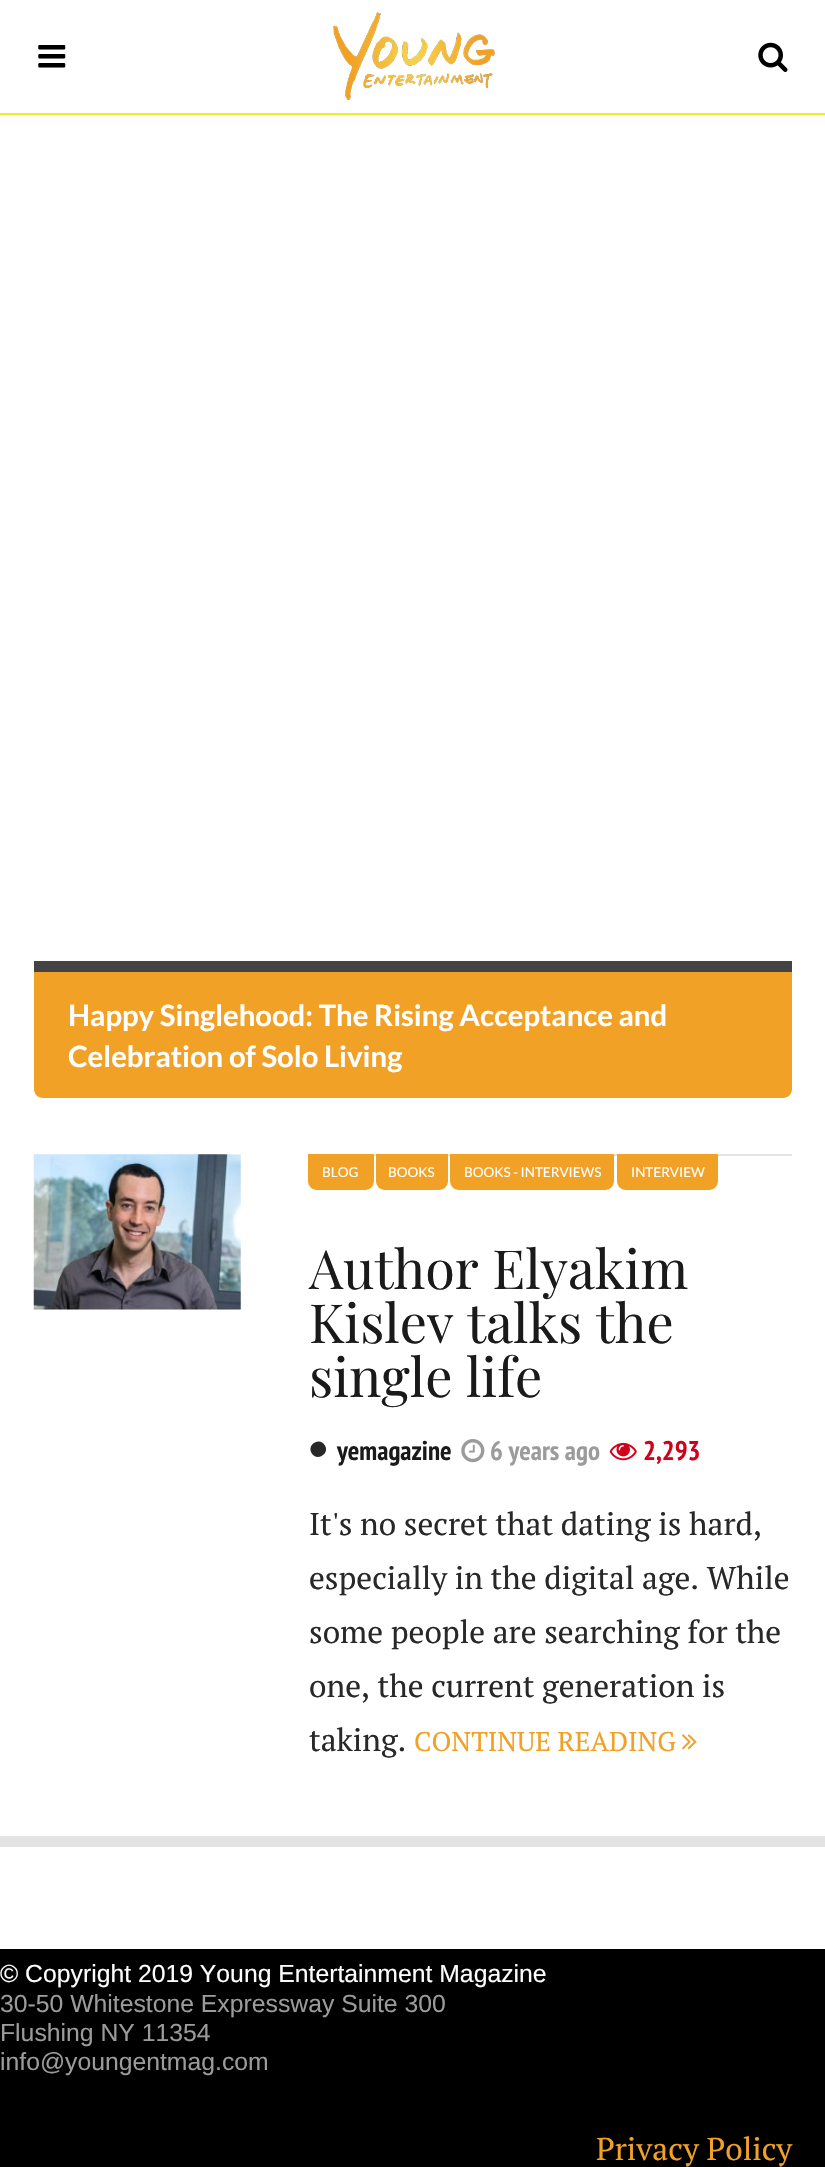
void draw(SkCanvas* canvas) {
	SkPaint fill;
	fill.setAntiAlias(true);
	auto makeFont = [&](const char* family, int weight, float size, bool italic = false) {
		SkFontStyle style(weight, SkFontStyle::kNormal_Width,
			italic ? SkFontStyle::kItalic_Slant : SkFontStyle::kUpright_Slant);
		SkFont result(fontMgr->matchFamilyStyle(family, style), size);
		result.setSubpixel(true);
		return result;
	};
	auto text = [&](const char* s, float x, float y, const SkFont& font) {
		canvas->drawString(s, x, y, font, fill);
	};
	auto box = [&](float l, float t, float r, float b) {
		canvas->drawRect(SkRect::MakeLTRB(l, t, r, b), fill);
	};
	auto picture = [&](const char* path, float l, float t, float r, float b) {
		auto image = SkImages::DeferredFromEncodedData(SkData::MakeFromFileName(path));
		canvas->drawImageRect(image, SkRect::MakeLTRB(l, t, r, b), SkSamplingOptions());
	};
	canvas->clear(0xFFFFFFFF);
	fill.setColor(0xFFEEEE22);
	box(0, 113, 825, 115);
	picture("image0.png", 38, 45, 66, 68);
	picture("image1.png", 333, 12, 495, 100);
	picture("image2.png", 758, 42, 788, 72);
	fill.setColor(0xFFF1A126);
	canvas->drawPath(SkPathBuilder().moveTo(34, 961).lineTo(792, 961).lineTo(792, 1089).cubicTo(792, 1094, 788, 1098, 783, 1098).lineTo(43, 1098).cubicTo(38, 1098, 34, 1094, 34, 1089).close().detach(), fill);
	fill.setColor(0xFF434343);
	box(34, 961, 792, 972);
	picture("image3.png", 33, 1154, 241, 1310);
	fill.setColor(0xFFE3E3E3);
	box(374, 1154, 792, 1156);
	fill.setColor(0xFFF1A126);
	canvas->drawPath(SkPathBuilder().moveTo(308, 1154).lineTo(374, 1154).lineTo(374, 1181).cubicTo(374, 1186, 370, 1190, 365, 1190).lineTo(317, 1190).cubicTo(312, 1190, 308, 1186, 308, 1181).close().detach(), fill);
	canvas->drawPath(SkPathBuilder().moveTo(376, 1154).lineTo(448, 1154).lineTo(448, 1181).cubicTo(448, 1186, 444, 1190, 439, 1190).lineTo(385, 1190).cubicTo(380, 1190, 376, 1186, 376, 1181).close().detach(), fill);
	canvas->drawPath(SkPathBuilder().moveTo(450, 1154).lineTo(614, 1154).lineTo(614, 1181).cubicTo(614, 1186, 610, 1190, 605, 1190).lineTo(459, 1190).cubicTo(454, 1190, 450, 1186, 450, 1181).close().detach(), fill);
	canvas->drawPath(SkPathBuilder().moveTo(617, 1154).lineTo(718, 1154).lineTo(718, 1181).cubicTo(718, 1186, 714, 1190, 709, 1190).lineTo(626, 1190).cubicTo(621, 1190, 617, 1186, 617, 1181).close().detach(), fill);
	fill.setColor(0xFF282828);
	canvas->drawPath(SkPathBuilder().moveTo(325, 1445.5f).cubicTo(330, 1454, 316.5f, 1462, 311.5f, 1453).cubicTo(306.5f, 1444.5f, 320, 1436.5f, 325, 1445.5f).close().detach(), fill);
	picture("image4.png", 461, 1439, 485, 1463);
	picture("image5.png", 609, 1442, 637, 1461);
	picture("image6.png", 682, 1734, 697, 1750);
	fill.setColor(0xFFE3E3E3);
	box(0, 1836, 825, 1847);
	fill.setColor(0xFF000000);
	box(0, 1949, 825, 2167);
	auto font1 = makeFont("Lato", 700, 29.25f);
	fill.setColor(0xFFFFFFFF);
	text("Happy Singlehood: The Rising Acceptance and", 68, 1026, font1);
	text("Celebration of Solo Living", 68, 1067, font1);
	auto font2 = makeFont("Lato", 400, 13.5f);
	text("BLOG", 322, 1177, font2);
	text("BOOKS", 388, 1177, font2);
	text("BOOKS - INTERVIEWS", 464, 1177, font2);
	text("INTERVIEW", 631, 1177, font2);
	auto font3 = makeFont("Playfair Display", 400, 54);
	fill.setColor(0xFF1A1A1A);
	text("Author Elyakim", 309, 1289, font3);
	text("Kislev talks the", 309, 1343, font3);
	text("single life", 309, 1397, font3);
	auto font4 = makeFont("PT Sans Narrow", 700, 27);
	text("yemagazine", 337, 1460, font4);
	fill.setColor(0xFF9B9B9B);
	text("6 years ago", 490, 1460, font4);
	fill.setColor(0xFFD0021B);
	text("2,293", 643, 1460, font4);
	auto font5 = makeFont("PT Serif", 400, 31.5f);
	fill.setColor(0xFF282828);
	text("It's no secret that dating is hard,", 309, 1535, font5);
	text("especially in the digital age. While", 309, 1589, font5);
	text("some people are searching for the", 309, 1643, font5);
	text("one, the current generation is", 309, 1697, font5);
	text("taking.", 309, 1751, font5);
	auto font6 = makeFont("PT Serif", 400, 27);
	fill.setColor(0xFFF1A126);
	text("CONTINUE READING", 414, 1751, font6);
	auto font7 = makeFont("Liberation Sans", 400, 24.75f);
	fill.setColor(0xFFFFFFFF);
	text("© Copyright 2019 Young Entertainment Magazine", 0, 1982, font7);
	fill.setColor(0xFF9B9B9B);
	text("30-50 Whitestone Expressway Suite 300", 0, 2012, font7);
	text("Flushing NY 11354", 0, 2041, font7);
	text("info@youngentmag.com", 0, 2070, font7);
	fill.setColor(0xFFF1A126);
	text("Privacy Policy", 596, 2160, font5);
}
